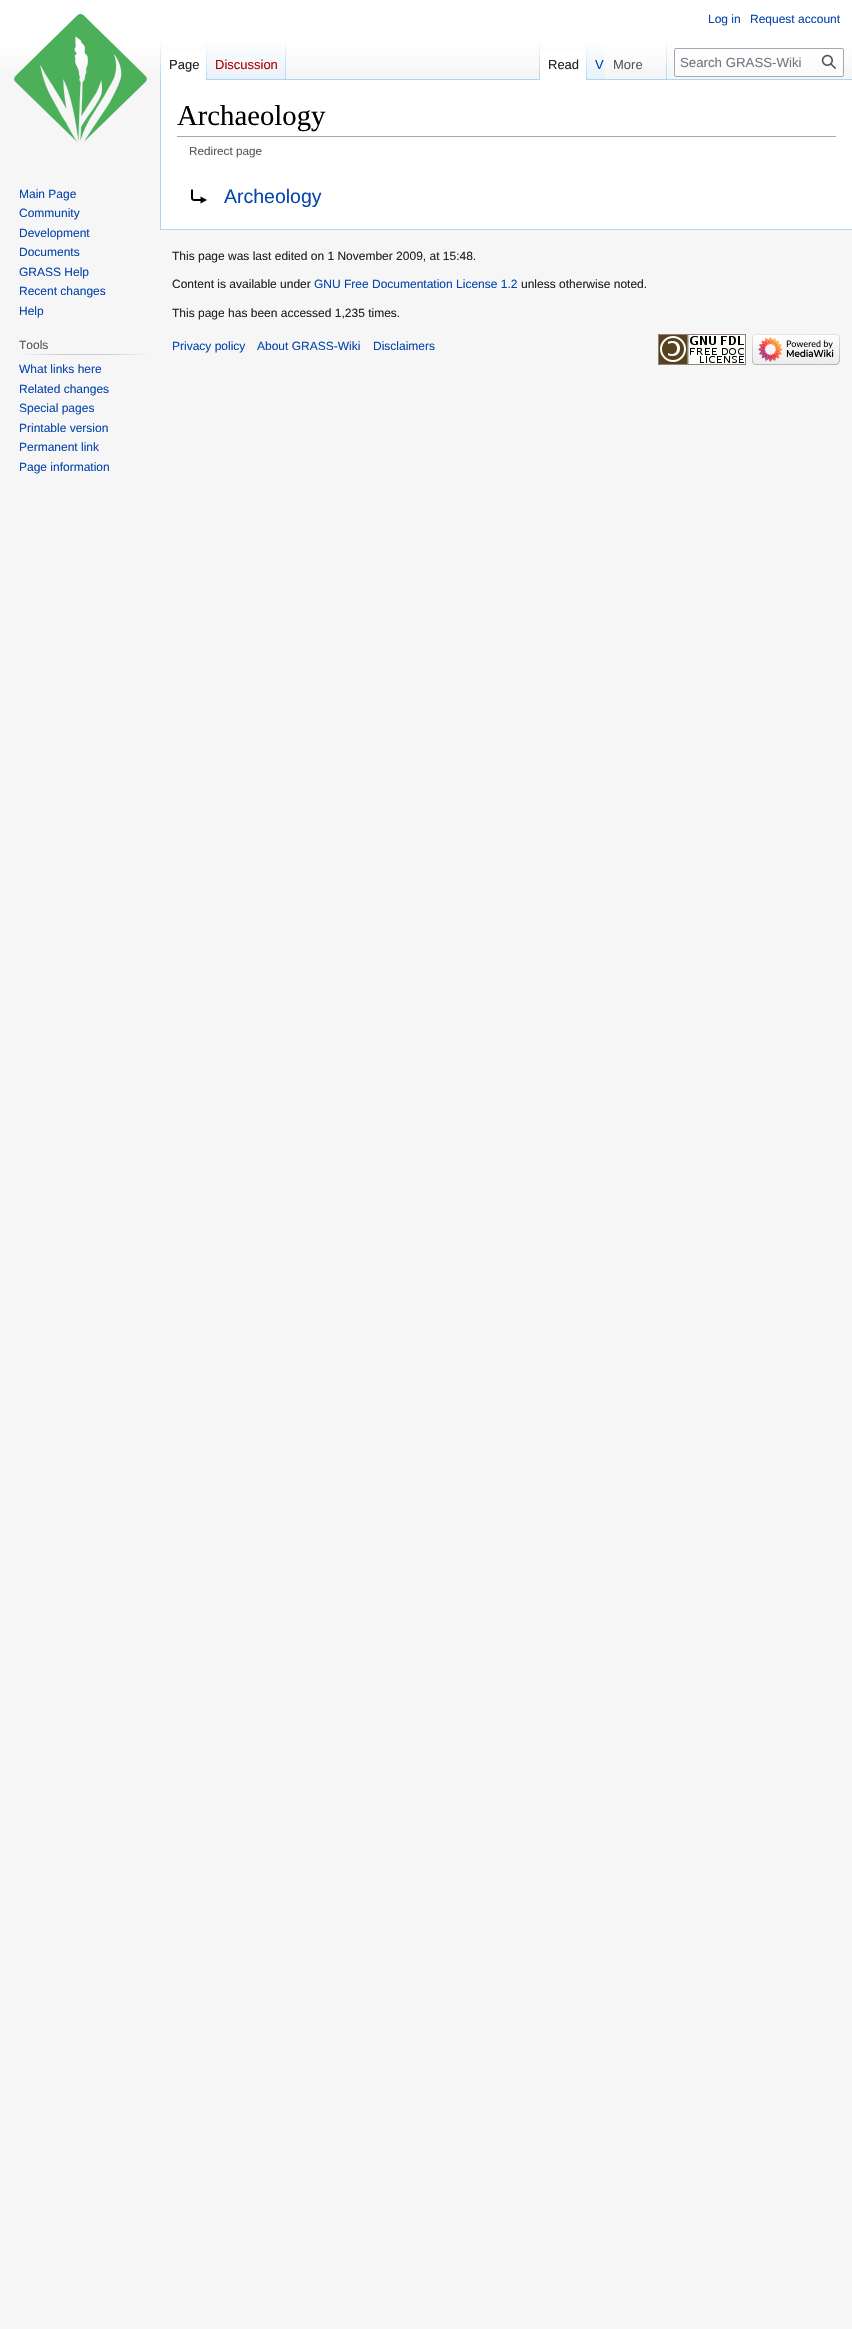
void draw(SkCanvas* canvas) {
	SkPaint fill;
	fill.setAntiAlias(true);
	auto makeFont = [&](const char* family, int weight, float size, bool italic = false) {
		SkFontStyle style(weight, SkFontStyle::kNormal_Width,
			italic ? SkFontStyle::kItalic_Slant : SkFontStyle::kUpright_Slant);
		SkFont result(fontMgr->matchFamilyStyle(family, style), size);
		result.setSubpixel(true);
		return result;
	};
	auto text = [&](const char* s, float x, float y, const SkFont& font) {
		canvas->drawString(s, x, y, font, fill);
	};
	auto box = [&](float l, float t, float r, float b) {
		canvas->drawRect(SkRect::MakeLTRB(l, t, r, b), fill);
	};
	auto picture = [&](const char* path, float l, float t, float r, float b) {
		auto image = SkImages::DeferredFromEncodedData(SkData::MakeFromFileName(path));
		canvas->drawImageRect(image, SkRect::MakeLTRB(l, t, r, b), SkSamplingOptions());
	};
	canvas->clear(0xFFF6F6F6);
	{
		const SkColor colors[] = {0xFFFFFFFF, 0xFFF6F6F6};
		const float stops[] = {0.5f, 1};
		const SkPoint ends[] = {{426, 0}, {426, 80}};
		fill.setShader(SkGradientShader::MakeLinear(ends, colors, stops, 2, SkTileMode::kClamp));
		fill.setAlpha(255);
	}
	box(0, 0, 852, 69);
	fill.setShader(nullptr);
	fill.setColor(0xFFA7D7F9);
	box(160, 229, 852, 230);
	box(160, 79, 161, 230);
	{
		const SkColor colors[] = {0x00A7D7F9, 0xFFA7D7F9};
		const float stops[] = {0, 1};
		const SkPoint ends[] = {{161, 40}, {161, 80}};
		fill.setShader(SkGradientShader::MakeLinear(ends, colors, stops, 2, SkTileMode::kClamp));
		fill.setAlpha(255);
	}
	box(160, 40, 161, 80);
	fill.setShader(nullptr);
	fill.setColor(0xFFFFFFFF);
	box(161, 51, 206, 80);
	{
		const SkColor colors[] = {0xFFFFFFFF, 0xFFA7D7F9};
		const float stops[] = {0, 1};
		const SkPoint ends[] = {{207, 40}, {207, 80}};
		fill.setShader(SkGradientShader::MakeLinear(ends, colors, stops, 2, SkTileMode::kClamp));
		fill.setAlpha(255);
	}
	box(206, 40, 207, 80);
	{
		const SkColor colors[] = {0xFF77C1F6, 0xFFE8F2F8, 0xFFFFFFFF};
		const float stops[] = {0, 0.03f, 1};
		const SkPoint ends[] = {{247, 80}, {247, 40}};
		fill.setShader(SkGradientShader::MakeLinear(ends, colors, stops, 3, SkTileMode::kClamp));
		fill.setAlpha(255);
	}
	box(207, 46, 286, 80);
	{
		const SkColor colors[] = {0x00A7D7F9, 0xFFA7D7F9};
		const float stops[] = {0, 1};
		const SkPoint ends[] = {{286, 40}, {286, 80}};
		fill.setShader(SkGradientShader::MakeLinear(ends, colors, stops, 2, SkTileMode::kClamp));
		fill.setAlpha(255);
	}
	box(285, 40, 286, 80);
	fill.setShader(nullptr);
	fill.setColor(0xFFA7D7F9);
	box(286, 79, 852, 80);
	{
		const SkColor colors[] = {0x00A7D7F9, 0xFFA7D7F9};
		const float stops[] = {0, 1};
		const SkPoint ends[] = {{540, 40}, {540, 80}};
		fill.setShader(SkGradientShader::MakeLinear(ends, colors, stops, 2, SkTileMode::kClamp));
		fill.setAlpha(255);
	}
	box(539, 40, 540, 80);
	fill.setShader(nullptr);
	fill.setColor(0xFFFFFFFF);
	box(540, 51, 586, 80);
	{
		const SkColor colors[] = {0xFFFFFFFF, 0xFFA7D7F9};
		const float stops[] = {0, 1};
		const SkPoint ends[] = {{587, 40}, {587, 80}};
		fill.setShader(SkGradientShader::MakeLinear(ends, colors, stops, 2, SkTileMode::kClamp));
		fill.setAlpha(255);
	}
	box(586, 40, 587, 80);
	{
		const SkColor colors[] = {0xFF77C1F6, 0xFFE8F2F8, 0xFFFFFFFF};
		const float stops[] = {0, 0.03f, 1};
		const SkPoint ends[] = {{596, 80}, {596, 40}};
		fill.setShader(SkGradientShader::MakeLinear(ends, colors, stops, 3, SkTileMode::kClamp));
		fill.setAlpha(255);
	}
	box(587, 46, 605, 79);
	{
		const SkColor colors[] = {0x00A7D7F9, 0xFFA7D7F9};
		const float stops[] = {0, 1};
		const SkPoint ends[] = {{667, 40}, {667, 80}};
		fill.setShader(SkGradientShader::MakeLinear(ends, colors, stops, 2, SkTileMode::kClamp));
		fill.setAlpha(255);
	}
	box(666, 40, 667, 80);
	fill.setShader(nullptr);
	fill.setColor(0x80FFFFFF);
	canvas->drawRoundRect(SkRect::MakeLTRB(674.5f, 48.5f, 843.5f, 76.5f), 1.5f, 1.5f, fill);
	fill.setStyle(SkPaint::kStroke_Style);
	fill.setStrokeWidth(1);
	fill.setColor(0xFFA2A9B1);
	canvas->drawRoundRect(SkRect::MakeLTRB(674.5f, 48.5f, 843.5f, 76.5f), 1.5f, 1.5f, fill);
	picture("image0.png", 821, 54, 836, 69);
	picture("image1.png", 14, 14, 147, 143);
	fill.setStyle(SkPaint::kFill_Style);
	{
		const SkColor colors[] = {0xFFF6F6F6, 0xFFC8CCD1, 0xFFC8CCD1, 0xFFF6F6F6};
		const float stops[] = {0, 0.33f, 0.66f, 1};
		const SkPoint ends[] = {{19, 355}, {150, 355}};
		fill.setShader(SkGradientShader::MakeLinear(ends, colors, stops, 4, SkTileMode::kClamp));
		fill.setAlpha(255);
	}
	box(19, 354, 150, 355);
	fill.setShader(nullptr);
	fill.setColor(0xFFFFFFFF);
	box(161, 80, 852, 229);
	fill.setColor(0xFFA2A9B1);
	box(177, 136, 836, 137);
	picture("image2.png", 191, 189, 207, 204);
	picture("image3.png", 658, 334, 746, 365);
	picture("image4.png", 752, 334, 840, 365);
	auto font1 = makeFont("Liberation Sans", 400, 12);
	fill.setColor(0xFF0645AD);
	text("Log in", 708, 23, font1);
	text("Request account", 750, 23, font1);
	auto font2 = makeFont("Liberation Sans", 400, 13);
	fill.setColor(0xFF202122);
	text("Page", 169, 69, font2);
	fill.setColor(0xFFBA0000);
	text("Discussion", 215, 69, font2);
	fill.setColor(0xFF202122);
	text("Read", 548, 69, font2);
	fill.setColor(0xFF0645AD);
	text("V", 595, 69, font2);
	fill.setColor(0xFF54595D);
	text("More", 613, 69, font2);
	auto font3 = makeFont("Liberation Sans", 400, 13.25f);
	fill.setColor(0xFF72777D);
	text("Search GRASS-Wiki", 680, 67, font3);
	fill.setColor(0xFF0645AD);
	text("Main Page", 19, 198, font1);
	text("Community", 19, 217, font1);
	text("Development", 19, 237, font1);
	text("Documents", 19, 256, font1);
	text("GRASS Help", 19, 276, font1);
	text("Recent changes", 19, 295, font1);
	text("Help", 19, 315, font1);
	fill.setColor(0xFF54595D);
	text("Tools", 19, 349, font1);
	fill.setColor(0xFF0645AD);
	text("What links here", 19, 373, font1);
	text("Related changes", 19, 393, font1);
	text("Special pages", 19, 412, font1);
	text("Printable version", 19, 432, font1);
	text("Permanent link", 19, 451, font1);
	text("Page information", 19, 471, font1);
	auto font4 = makeFont("Liberation Serif", 400, 28.75f);
	fill.setColor(0xFF000000);
	text("Archaeology", 177, 125, font4);
	auto font5 = makeFont("Liberation Sans", 400, 11.75f);
	fill.setColor(0xFF54595D);
	text("Redirect page", 189, 155, font5);
	auto font6 = makeFont("Liberation Sans", 400, 19.5f);
	fill.setColor(0xFF0645AD);
	text("Archeology", 224, 203, font6);
	fill.setColor(0xFF202122);
	text("This page was last edited on 1 November 2009, at 15:48.", 172, 260, font1);
	text("Content is available under", 172, 288, font1);
	fill.setColor(0xFF0645AD);
	text("GNU Free Documentation License 1.2", 314, 288, font1);
	fill.setColor(0xFF202122);
	text("unless otherwise noted.", 521, 288, font1);
	text("This page has been accessed 1,235 times.", 172, 317, font1);
	fill.setColor(0xFF0645AD);
	text("Privacy policy", 172, 350, font1);
	text("About GRASS-Wiki", 257, 350, font1);
	text("Disclaimers", 373, 350, font1);
}
